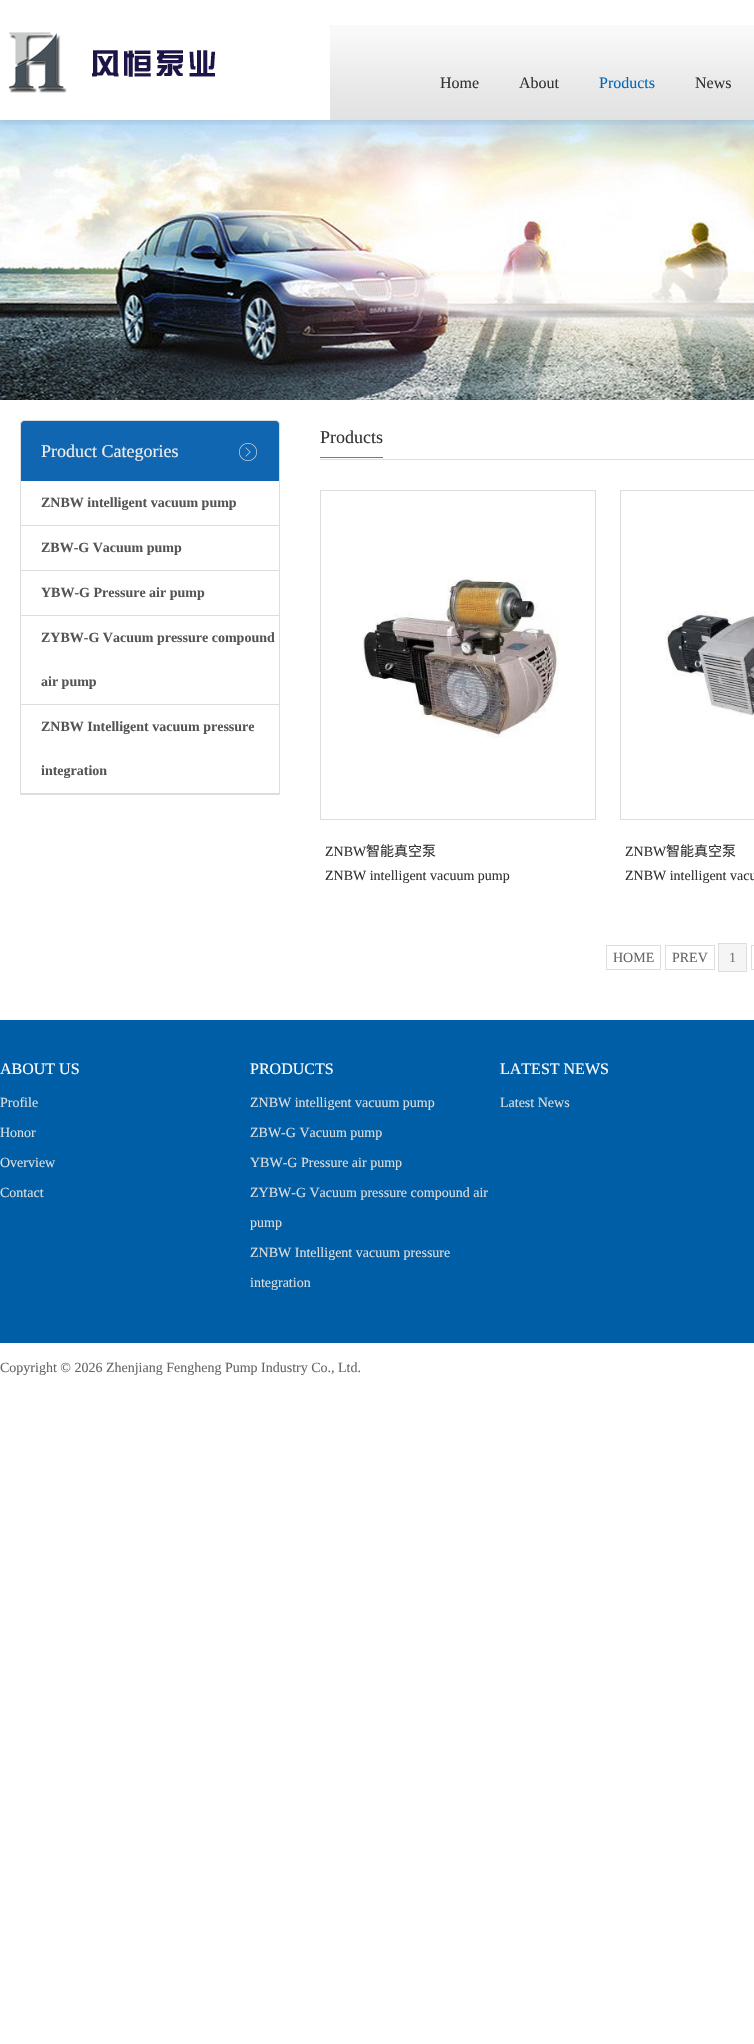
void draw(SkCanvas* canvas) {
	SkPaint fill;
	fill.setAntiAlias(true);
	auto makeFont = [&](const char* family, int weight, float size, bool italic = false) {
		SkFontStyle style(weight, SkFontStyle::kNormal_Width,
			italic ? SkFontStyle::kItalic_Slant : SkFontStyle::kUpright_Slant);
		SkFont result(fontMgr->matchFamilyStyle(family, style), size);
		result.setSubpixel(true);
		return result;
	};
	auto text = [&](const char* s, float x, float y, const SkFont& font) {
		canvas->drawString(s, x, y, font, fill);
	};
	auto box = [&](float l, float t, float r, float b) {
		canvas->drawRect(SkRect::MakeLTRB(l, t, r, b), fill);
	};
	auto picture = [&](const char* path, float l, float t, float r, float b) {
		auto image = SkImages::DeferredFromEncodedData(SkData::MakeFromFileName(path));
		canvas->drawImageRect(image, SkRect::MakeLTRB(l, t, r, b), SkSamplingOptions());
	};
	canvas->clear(0xFFFFFFFF);
	picture("image2.png", 0, 120, 754, 400);
	canvas->save();
	canvas->clipRect(SkRect::MakeLTRB(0, 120, 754, 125));
	fill.setColor(0x1A000000);
	fill.setMaskFilter(SkMaskFilter::MakeBlur(kNormal_SkBlurStyle, 4));
	canvas->drawRect(SkRect::MakeLTRB(0, 2, 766, 122), fill);
	fill.setMaskFilter(nullptr);
	canvas->restore();
	picture("image0.png", 330, 25, 754, 120);
	picture("image1.png", 0, 25, 330, 120);
	fill.setStyle(SkPaint::kStroke_Style);
	fill.setStrokeWidth(1);
	fill.setColor(0xFFDDDDDD);
	canvas->drawPath(SkPathBuilder().moveTo(24, 420.5f).lineTo(276, 420.5f).cubicTo(278, 420.5f, 279.5f, 422, 279.5f, 424).lineTo(279.5f, 794.5f).lineTo(20.5f, 794.5f).lineTo(20.5f, 424).cubicTo(20.5f, 422, 22, 420.5f, 24, 420.5f).close().detach(), fill);
	fill.setStyle(SkPaint::kFill_Style);
	fill.setColor(0xFF1166B1);
	canvas->drawPath(SkPathBuilder().moveTo(24, 421).lineTo(276, 421).cubicTo(277.5f, 421, 279, 422.5f, 279, 424).lineTo(279, 481).lineTo(21, 481).lineTo(21, 424).cubicTo(21, 422.5f, 22.5f, 421, 24, 421).close().detach(), fill);
	picture("image3.png", 239, 443, 257, 461);
	fill.setColor(0xFFDDDDDD);
	box(21, 525, 279, 526);
	box(21, 570, 279, 571);
	box(21, 615, 279, 616);
	box(21, 704, 279, 705);
	box(21, 793, 279, 794);
	box(320, 459, 754, 460);
	fill.setColor(0xFF309494);
	box(320, 457, 383, 458);
	fill.setStyle(SkPaint::kStroke_Style);
	fill.setColor(0xFFDDDDDD);
	canvas->drawRect(SkRect::MakeLTRB(320.5f, 490.5f, 595.5f, 819.5f), fill);
	picture("image4.png", 362, 577, 559, 738);
	canvas->drawRect(SkRect::MakeLTRB(620.5f, 490.5f, 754.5f, 819.5f), fill);
	picture("image5.png", 665, 611, 754, 716);
	canvas->drawRect(SkRect::MakeLTRB(606.5f, 945.5f, 660.5f, 969.5f), fill);
	canvas->drawRect(SkRect::MakeLTRB(665.5f, 945.5f, 714.5f, 969.5f), fill);
	fill.setStyle(SkPaint::kFill_Style);
	fill.setColor(0xFFF5F5F5);
	canvas->drawRect(SkRect::MakeLTRB(718.5f, 943.5f, 746.5f, 971.5f), fill);
	fill.setStyle(SkPaint::kStroke_Style);
	fill.setColor(0xFFDDDDDD);
	canvas->drawRect(SkRect::MakeLTRB(718.5f, 943.5f, 746.5f, 971.5f), fill);
	canvas->drawRect(SkRect::MakeLTRB(751.5f, 945.5f, 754.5f, 969.5f), fill);
	fill.setStyle(SkPaint::kFill_Style);
	fill.setColor(0xFF005EA7);
	box(0, 1020, 754, 1343);
	auto font1 = makeFont("Liberation Serif", 400, 16);
	fill.setColor(0xFF333333);
	text("Home", 440, 88, font1);
	text("About", 519, 88, font1);
	fill.setColor(0xFF0266B4);
	text("Products", 599, 88, font1);
	fill.setColor(0xFF333333);
	text("News", 695, 88, font1);
	auto font2 = makeFont("Liberation Serif", 400, 18);
	fill.setColor(0xFFEEEEEE);
	text("Product Categories", 41, 457, font2);
	auto font3 = makeFont("Liberation Serif", 700, 14);
	fill.setColor(0xFF555555);
	text("ZNBW intelligent vacuum pump", 41, 507, font3);
	text("ZBW-G Vacuum pump", 41, 552, font3);
	text("YBW-G Pressure air pump", 41, 597, font3);
	text("ZYBW-G Vacuum pressure compound", 41, 642, font3);
	text("air pump", 41, 686, font3);
	text("ZNBW Intelligent vacuum pressure", 41, 731, font3);
	text("integration", 41, 775, font3);
	fill.setColor(0xFF333333);
	text("Products", 320, 443, font2);
	auto font4 = makeFont("Liberation Serif", 400, 14);
	text("ZNBW", 325, 856, font4);
	auto font5 = makeFont("Noto Sans CJK SC", 400, 14);
	text("智能真空泵", 366, 856, font5);
	text("ZNBW intelligent vacuum pump", 325, 880, font4);
	text("ZNBW", 625, 856, font4);
	text("智能真空泵", 666, 856, font5);
	text("ZNBW intelligent vacu", 625, 880, font4);
	fill.setColor(0xFF666666);
	text("HOME", 613, 962, font4);
	text("PREV", 672, 962, font4);
	fill.setColor(0xFF777777);
	text("1", 729, 962, font4);
	fill.setColor(0xFFFFFFFF);
	text("ABOUT US", 0, 1074, font1);
	fill.setColor(0xFFDEDEDE);
	text("Profile", 0, 1107, font4);
	text("Honor", 0, 1137, font4);
	text("Overview", 0, 1167, font4);
	text("Contact", 0, 1197, font4);
	fill.setColor(0xFFFFFFFF);
	text("PRODUCTS", 250, 1074, font1);
	fill.setColor(0xFFDEDEDE);
	text("ZNBW intelligent vacuum pump", 250, 1107, font4);
	text("ZBW-G Vacuum pump", 250, 1137, font4);
	text("YBW-G Pressure air pump", 250, 1167, font4);
	text("ZYBW-G Vacuum pressure compound air", 250, 1197, font4);
	text("pump", 250, 1227, font4);
	text("ZNBW Intelligent vacuum pressure", 250, 1257, font4);
	text("integration", 250, 1287, font4);
	fill.setColor(0xFFFFFFFF);
	text("LATEST NEWS", 500, 1074, font1);
	fill.setColor(0xFFDEDEDE);
	text("Latest News", 500, 1107, font4);
	fill.setColor(0xFF666666);
	text("Copyright © 2026 Zhenjiang Fengheng Pump Industry Co., Ltd.", 0, 1372, font4);
}
